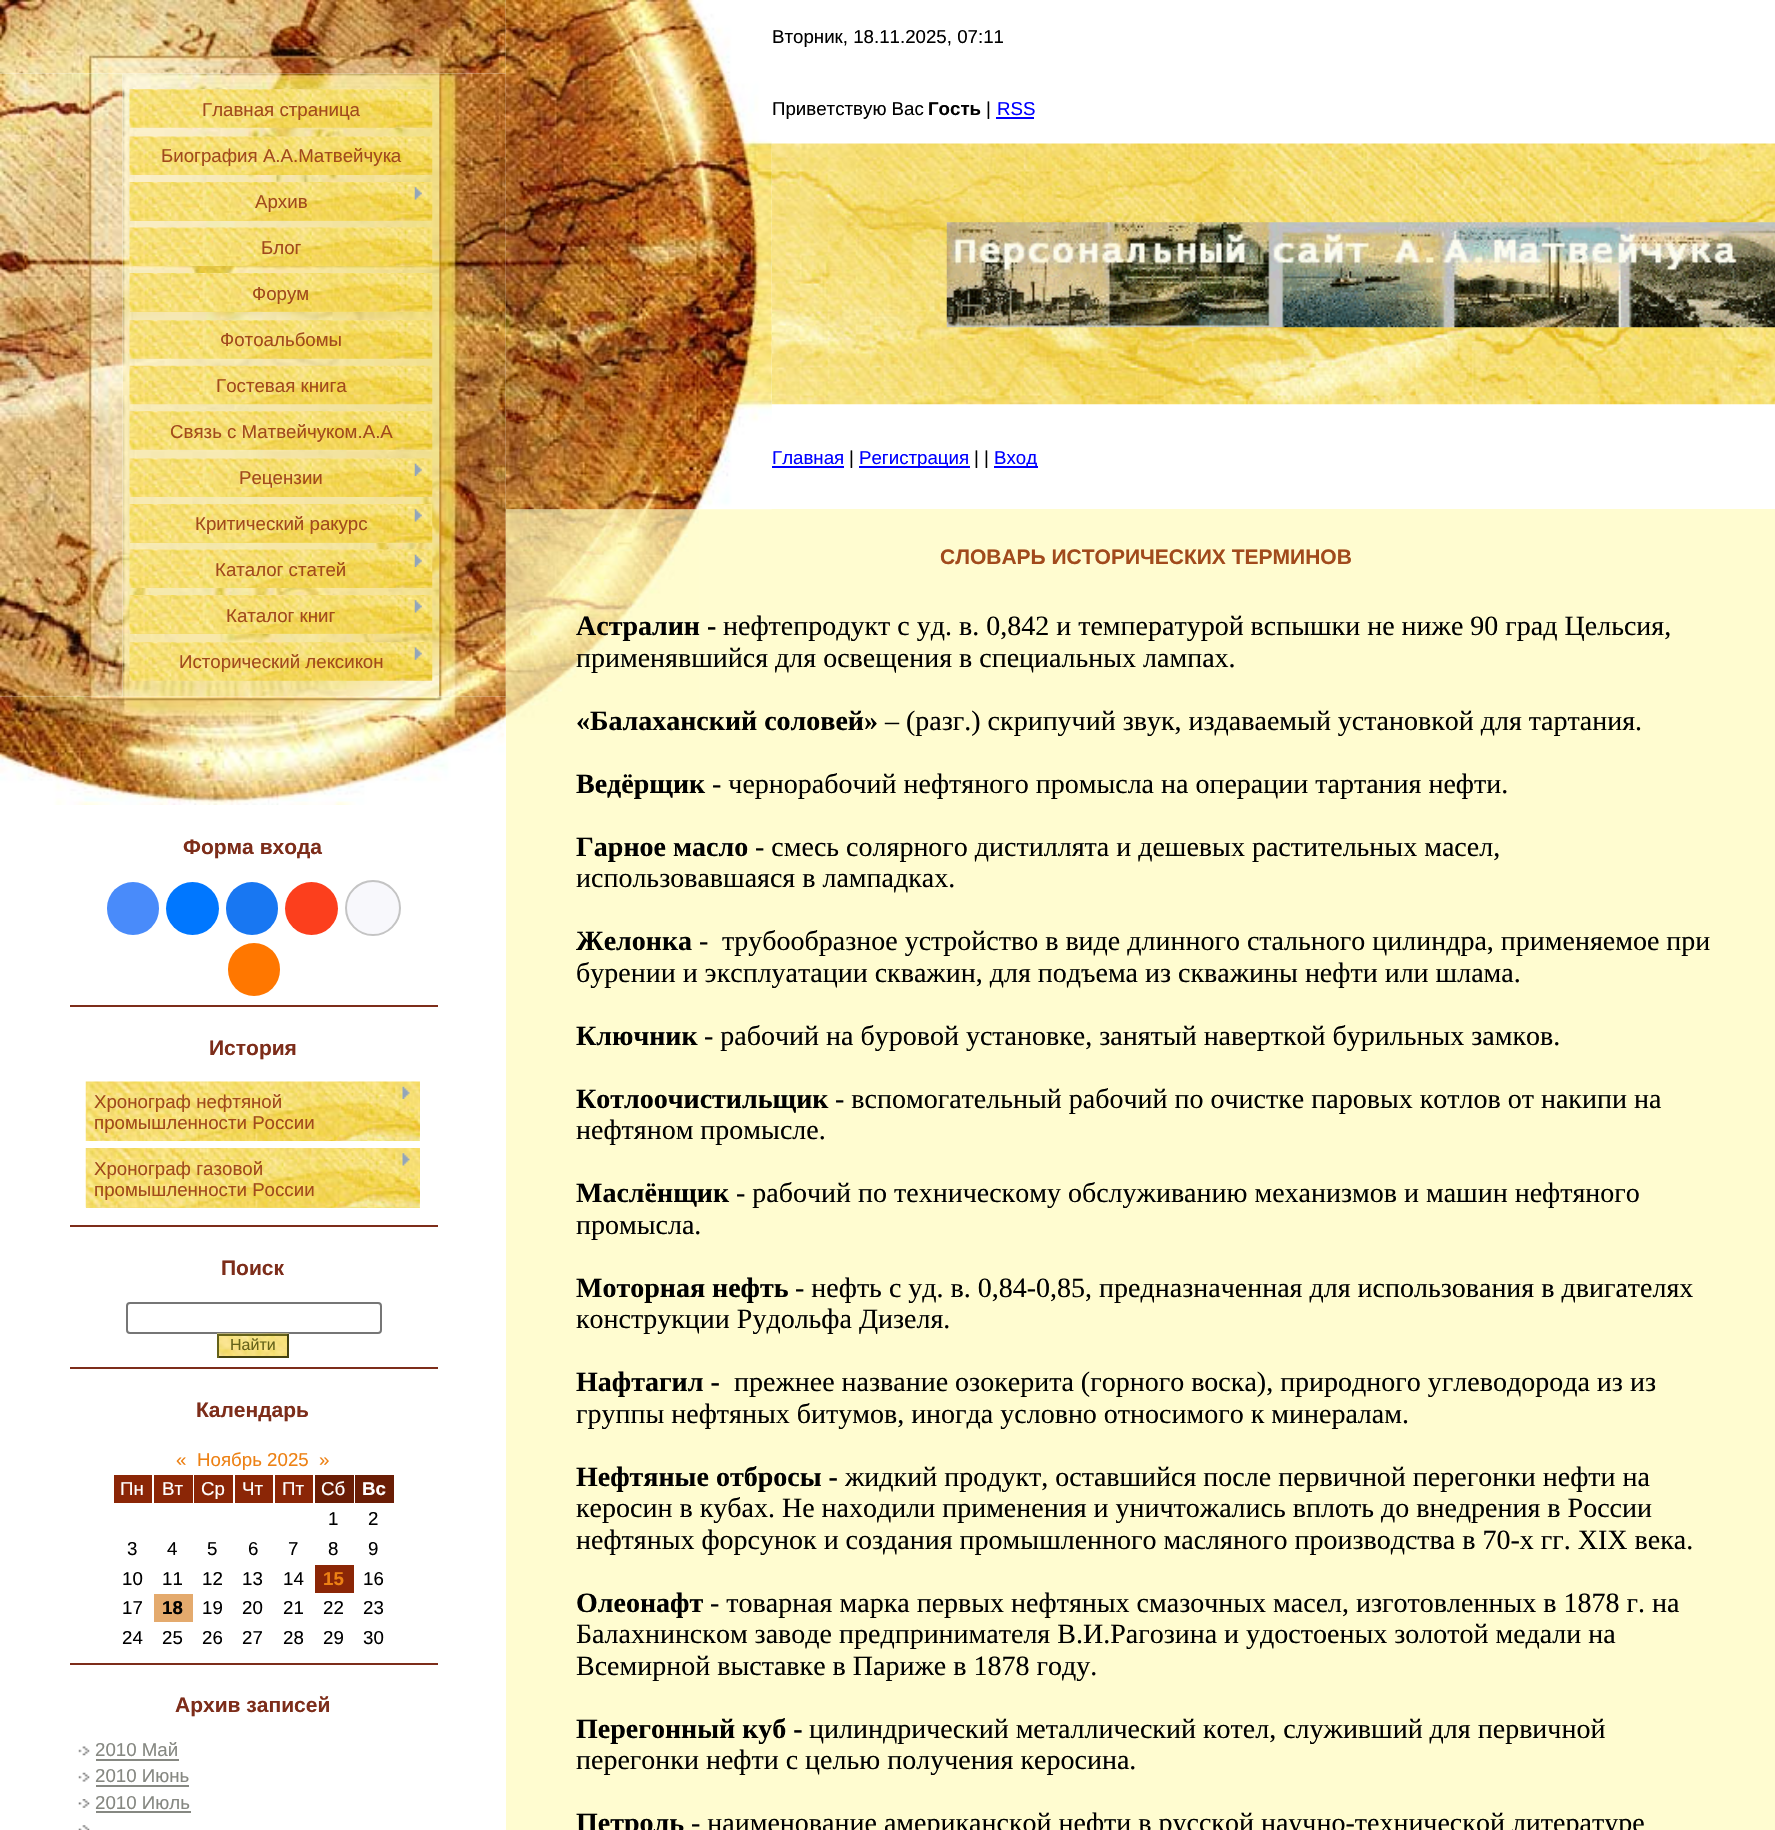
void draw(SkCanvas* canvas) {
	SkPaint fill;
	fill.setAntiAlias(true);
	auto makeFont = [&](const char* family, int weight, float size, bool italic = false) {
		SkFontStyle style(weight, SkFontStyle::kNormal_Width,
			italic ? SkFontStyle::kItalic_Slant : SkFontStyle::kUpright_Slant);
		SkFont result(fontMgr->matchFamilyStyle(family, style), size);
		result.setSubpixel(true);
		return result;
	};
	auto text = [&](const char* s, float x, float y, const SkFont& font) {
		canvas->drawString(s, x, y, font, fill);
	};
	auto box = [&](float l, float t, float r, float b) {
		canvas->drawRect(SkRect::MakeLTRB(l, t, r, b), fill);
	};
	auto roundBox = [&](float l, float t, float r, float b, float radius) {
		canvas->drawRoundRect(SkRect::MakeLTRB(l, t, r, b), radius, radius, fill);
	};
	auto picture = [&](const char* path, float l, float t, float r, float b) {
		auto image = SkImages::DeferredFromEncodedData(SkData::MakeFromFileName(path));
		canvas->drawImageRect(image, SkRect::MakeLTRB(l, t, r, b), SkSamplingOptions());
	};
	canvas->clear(0xFFFFFFFF);
	picture("image2.png", 122, 73, 440, 697);
	picture("image0.png", 0, 0, 506, 74);
	picture("image1.png", 0, 73, 123, 697);
	picture("image3.png", 129, 89, 433, 128);
	picture("image4.png", 129, 136, 433, 175);
	fill.setColor(0xFFF2DA6C);
	box(130, 220, 432, 221);
	picture("image5.png", 129, 182, 433, 221);
	picture("image6.png", 414, 187, 422, 200);
	picture("image7.png", 129, 227, 433, 266);
	box(130, 311, 432, 312);
	picture("image8.png", 129, 273, 433, 312);
	picture("image9.png", 129, 320, 433, 359);
	picture("image10.png", 129, 365, 433, 405);
	picture("image11.png", 129, 411, 433, 450);
	picture("image12.png", 129, 458, 433, 497);
	picture("image13.png", 414, 463, 422, 476);
	box(130, 542, 432, 543);
	picture("image14.png", 129, 504, 433, 543);
	picture("image6.png", 414, 509, 422, 522);
	picture("image15.png", 129, 549, 433, 588);
	picture("image13.png", 414, 554, 422, 567);
	box(130, 633, 432, 634);
	picture("image16.png", 129, 595, 433, 634);
	picture("image6.png", 414, 600, 422, 613);
	picture("image17.png", 129, 642, 433, 681);
	picture("image18.png", 414, 647, 422, 660);
	fill.setColor(0xFFFFFCD0);
	box(506, 509, 1775, 1830);
	picture("image33.png", 505, 509, 699, 725);
	picture("image19.png", 439, 73, 506, 697);
	picture("image20.png", 0, 696, 506, 805);
	fill.setColor(0xFF7D2D1A);
	box(70, 1005, 438, 1007);
	fill.setColor(0xFF498BFA);
	roundBox(107, 882, 159, 935, 26);
	fill.setColor(0xFF0077FF);
	canvas->drawCircle(192.5f, 908.5f, 26.5f, fill);
	fill.setColor(0xFF1877F2);
	roundBox(226, 882, 278, 935, 26);
	fill.setColor(0xFFFC3F1D);
	canvas->drawCircle(311.5f, 908.5f, 26.5f, fill);
	fill.setColor(0xFFF8F8FC);
	canvas->drawCircle(373, 908, 27, fill);
	fill.setStyle(SkPaint::kStroke_Style);
	fill.setStrokeWidth(2);
	fill.setColor(0xFFC4C4C4);
	canvas->drawCircle(373, 908, 27, fill);
	fill.setStyle(SkPaint::kFill_Style);
	fill.setColor(0xFFFF7700);
	roundBox(228, 943, 280, 996, 26);
	fill.setColor(0xFF7D2D1A);
	box(70, 1225, 438, 1227);
	picture("image21.png", 85, 1081, 420, 1141);
	picture("image22.png", 402, 1086, 410, 1099);
	fill.setColor(0xFFF2DA6C);
	box(86, 1207, 420, 1208);
	picture("image23.png", 85, 1148, 420, 1208);
	picture("image24.png", 402, 1153, 410, 1166);
	fill.setColor(0xFF7D2D1A);
	box(70, 1367, 438, 1369);
	fill.setStyle(SkPaint::kStroke_Style);
	fill.setColor(0xFF767676);
	canvas->drawRoundRect(SkRect::MakeLTRB(127, 1303, 381, 1333), 3, 3, fill);
	picture("image25.png", 217, 1333, 289, 1356);
	fill.setStyle(SkPaint::kFill_Style);
	fill.setColor(0xFF656219);
	box(217, 1334, 289, 1336);
	fill.setColor(0xFF434111);
	box(287, 1334, 289, 1358);
	box(217, 1356, 289, 1358);
	fill.setColor(0xFF656219);
	box(217, 1334, 219, 1358);
	fill.setColor(0xFF7D2D1A);
	box(70, 1663, 438, 1665);
	fill.setColor(0xFF8B2606);
	box(114, 1475, 152, 1503);
	box(154, 1475, 193, 1503);
	box(194, 1475, 233, 1503);
	box(235, 1475, 273, 1503);
	box(275, 1475, 313, 1503);
	fill.setColor(0xFF6A1D05);
	box(315, 1475, 354, 1503);
	box(355, 1475, 394, 1503);
	fill.setColor(0xFF8B2606);
	box(315, 1565, 354, 1593);
	fill.setColor(0xFFE4AA6D);
	box(154, 1594, 193, 1622);
	picture("image26.png", 78, 1746, 90, 1756);
	fill.setColor(0xFF868882);
	box(96, 1759, 179, 1761);
	picture("image27.png", 78, 1772, 90, 1782);
	box(96, 1785, 189, 1787);
	picture("image28.png", 78, 1799, 90, 1808);
	box(96, 1811, 191, 1813);
	picture("image29.png", 78, 1825, 90, 1830);
	picture("image31.png", 771, 143, 1775, 405);
	picture("image30.png", 505, 0, 772, 510);
	fill.setColor(0xFF0000FF);
	box(996, 117, 1034, 119);
	picture("image32.png", 946, 222, 1775, 328);
	box(772, 466, 844, 468);
	box(859, 466, 970, 468);
	box(994, 466, 1038, 468);
	auto font1 = makeFont("Liberation Sans", 400, 18.7f);
	fill.setColor(0xFFA14A1C);
	text("Главная страница", 202, 116, font1);
	text("Биография А.А.Матвейчука", 161, 162, font1);
	text("Архив", 255, 208, font1);
	text("Блог", 261, 254, font1);
	text("Форум", 252, 300, font1);
	text("Фотоальбомы", 220, 346, font1);
	text("Гостевая книга", 216, 392, font1);
	text("Связь с Матвейчуком.А.А", 170, 438, font1);
	text("Рецензии", 239, 484, font1);
	text("Критический ракурс", 195, 530, font1);
	text("Каталог статей", 215, 576, font1);
	text("Каталог книг", 226, 622, font1);
	text("Исторический лексикон", 179, 668, font1);
	auto font2 = makeFont("Liberation Sans", 700, 21);
	fill.setColor(0xFF7D2D1A);
	text("Форма входа", 183, 854, font2);
	text("История", 209, 1055, font2);
	fill.setColor(0xFFA14A1C);
	text("Хронограф нефтяной", 94, 1108, font1);
	text("промышленности России", 94, 1129, font1);
	text("Хронограф газовой", 94, 1175, font1);
	text("промышленности России", 94, 1196, font1);
	fill.setColor(0xFF7D2D1A);
	text("Поиск", 221, 1275, font2);
	auto font3 = makeFont("Liberation Sans", 400, 16);
	fill.setColor(0xFF656219);
	text("Найти", 230, 1350, font3);
	fill.setColor(0xFF7D2D1A);
	text("Календарь", 196, 1417, font2);
	fill.setColor(0xFFED8114);
	text("«", 176, 1466, font1);
	text("Ноябрь 2025", 197, 1466, font1);
	text("»", 319, 1466, font1);
	fill.setColor(0xFFFFFFFF);
	text("Пн", 120, 1495, font1);
	text("Вт", 162, 1495, font1);
	text("Ср", 201, 1495, font1);
	text("Чт", 242, 1495, font1);
	text("Пт", 282, 1495, font1);
	text("Сб", 321, 1495, font1);
	auto font4 = makeFont("Liberation Sans", 700, 18.7f);
	text("Вс", 362, 1495, font4);
	fill.setColor(0xFF000000);
	text("1", 328, 1525, font1);
	text("2", 368, 1525, font1);
	text("3", 127, 1555, font1);
	text("4", 167, 1555, font1);
	text("5", 207, 1555, font1);
	text("6", 248, 1555, font1);
	text("7", 288, 1555, font1);
	text("8", 328, 1555, font1);
	text("9", 368, 1555, font1);
	text("10", 122, 1585, font1);
	text("11", 162, 1585, font1);
	text("12", 202, 1585, font1);
	text("13", 242, 1585, font1);
	text("14", 283, 1585, font1);
	fill.setColor(0xFFED8114);
	text("15", 323, 1585, font4);
	fill.setColor(0xFF000000);
	text("16", 363, 1585, font1);
	text("17", 122, 1614, font1);
	text("18", 162, 1614, font4);
	text("19", 202, 1614, font1);
	text("20", 242, 1614, font1);
	text("21", 283, 1614, font1);
	text("22", 323, 1614, font1);
	text("23", 363, 1614, font1);
	text("24", 122, 1644, font1);
	text("25", 162, 1644, font1);
	text("26", 202, 1644, font1);
	text("27", 242, 1644, font1);
	text("28", 283, 1644, font1);
	text("29", 323, 1644, font1);
	text("30", 363, 1644, font1);
	fill.setColor(0xFF7D2D1A);
	text("Архив записей", 175, 1712, font2);
	fill.setColor(0xFF868882);
	text("2010 Май", 95, 1756, font1);
	text("2010 Июнь", 95, 1782, font1);
	text("2010 Июль", 95, 1809, font1);
	fill.setColor(0xFF000000);
	text("Вторник, 18.11.2025, 07:11", 772, 43, font1);
	text("Приветствую Вас", 772, 115, font1);
	text("Гость", 928, 115, font4);
	text("|", 986, 115, font1);
	fill.setColor(0xFF0000FF);
	text("RSS", 997, 115, font1);
	text("Главная", 772, 464, font1);
	fill.setColor(0xFF000000);
	text("|", 849, 464, font1);
	fill.setColor(0xFF0000FF);
	text("Регистрация", 859, 464, font1);
	fill.setColor(0xFF000000);
	text("| |", 974, 464, font1);
	fill.setColor(0xFF0000FF);
	text("Вход", 994, 464, font1);
	fill.setColor(0xFFA14A1C);
	text("СЛОВАРЬ ИСТОРИЧЕСКИХ ТЕРМИНОВ", 940, 564, font2);
	auto font5 = makeFont("Liberation Serif", 700, 28);
	fill.setColor(0xFF000000);
	text("Астралин -", 576, 635, font5);
	auto font6 = makeFont("Liberation Serif", 400, 28);
	text("нефтепродукт с уд. в. 0,842 и температурой вспышки не ниже 90 град Цельсия,", 723, 635, font6);
	text("применявшийся для освещения в специальных лампах.", 576, 667, font6);
	text("«Балаханский соловей»", 576, 730, font5);
	text("– (разг.) скрипучий звук, издаваемый установкой для тартания.", 885, 730, font6);
	text("Ведёрщик", 576, 793, font5);
	text("- чернорабочий нефтяного промысла на операции тартания нефти.", 712, 793, font6);
	text("Гарное масло", 576, 856, font5);
	text("- смесь солярного дистиллята и дешевых растительных масел,", 755, 856, font6);
	text("использовавшаяся в лампадках.", 576, 887, font6);
	text("Желонка", 576, 950, font5);
	text("-", 699, 950, font6);
	text("трубообразное устройство в виде длинного стального цилиндра, применяемое при", 722, 950, font6);
	text("бурении и эксплуатации скважин, для подъема из скважины нефти или шлама.", 576, 982, font6);
	text("Ключник", 576, 1045, font5);
	text("- рабочий на буровой установке, занятый наверткой бурильных замков.", 704, 1045, font6);
	text("Котлоочистильщик", 576, 1108, font5);
	text("- вспомогательный рабочий по очистке паровых котлов от накипи на", 835, 1108, font6);
	text("нефтяном промысле.", 576, 1139, font6);
	text("Маслёнщик", 576, 1202, font5);
	text("- рабочий по техническому обслуживанию механизмов и машин нефтяного", 736, 1202, font6);
	text("промысла.", 576, 1234, font6);
	text("Моторная нефть", 576, 1297, font5);
	text("- нефть с уд. в. 0,84-0,85, предназначенная для использования в двигателях", 795, 1297, font6);
	text("конструкции Рудольфа Дизеля.", 576, 1328, font6);
	text("Нафтагил -", 576, 1391, font5);
	text("прежнее название озокерита (горного воска), природного углеводорода из из", 734, 1391, font6);
	text("группы нефтяных битумов, иногда условно относимого к минералам.", 576, 1423, font6);
	text("Нефтяные отбросы -", 576, 1486, font5);
	text("жидкий продукт, оставшийся после первичной перегонки нефти на", 845, 1486, font6);
	text("керосин в кубах. Не находили применения и уничтожались вплоть до внедрения в России", 576, 1517, font6);
	text("нефтяных форсунок и создания промышленного масляного производства в 70-х гг. XIX века.", 576, 1549, font6);
	text("Олеонафт", 576, 1612, font5);
	text("- товарная марка первых нефтяных смазочных масел, изготовленных в 1878 г. на", 710, 1612, font6);
	text("Балахнинском заводе предпринимателя В.И.Рагозина и удостоеных золотой медали на", 576, 1643, font6);
	text("Всемирной выставке в Париже в 1878 году.", 576, 1675, font6);
	text("Перегонный куб -", 576, 1738, font5);
	text("цилиндрический металлический котел, служивший для первичной", 809, 1738, font6);
	text("перегонки нефти с целью получения керосина.", 576, 1769, font6);
	text("Петроль", 576, 1832, font5);
	text("- наименование американской нефти в русской научно-технической литературе", 691, 1832, font6);
}
